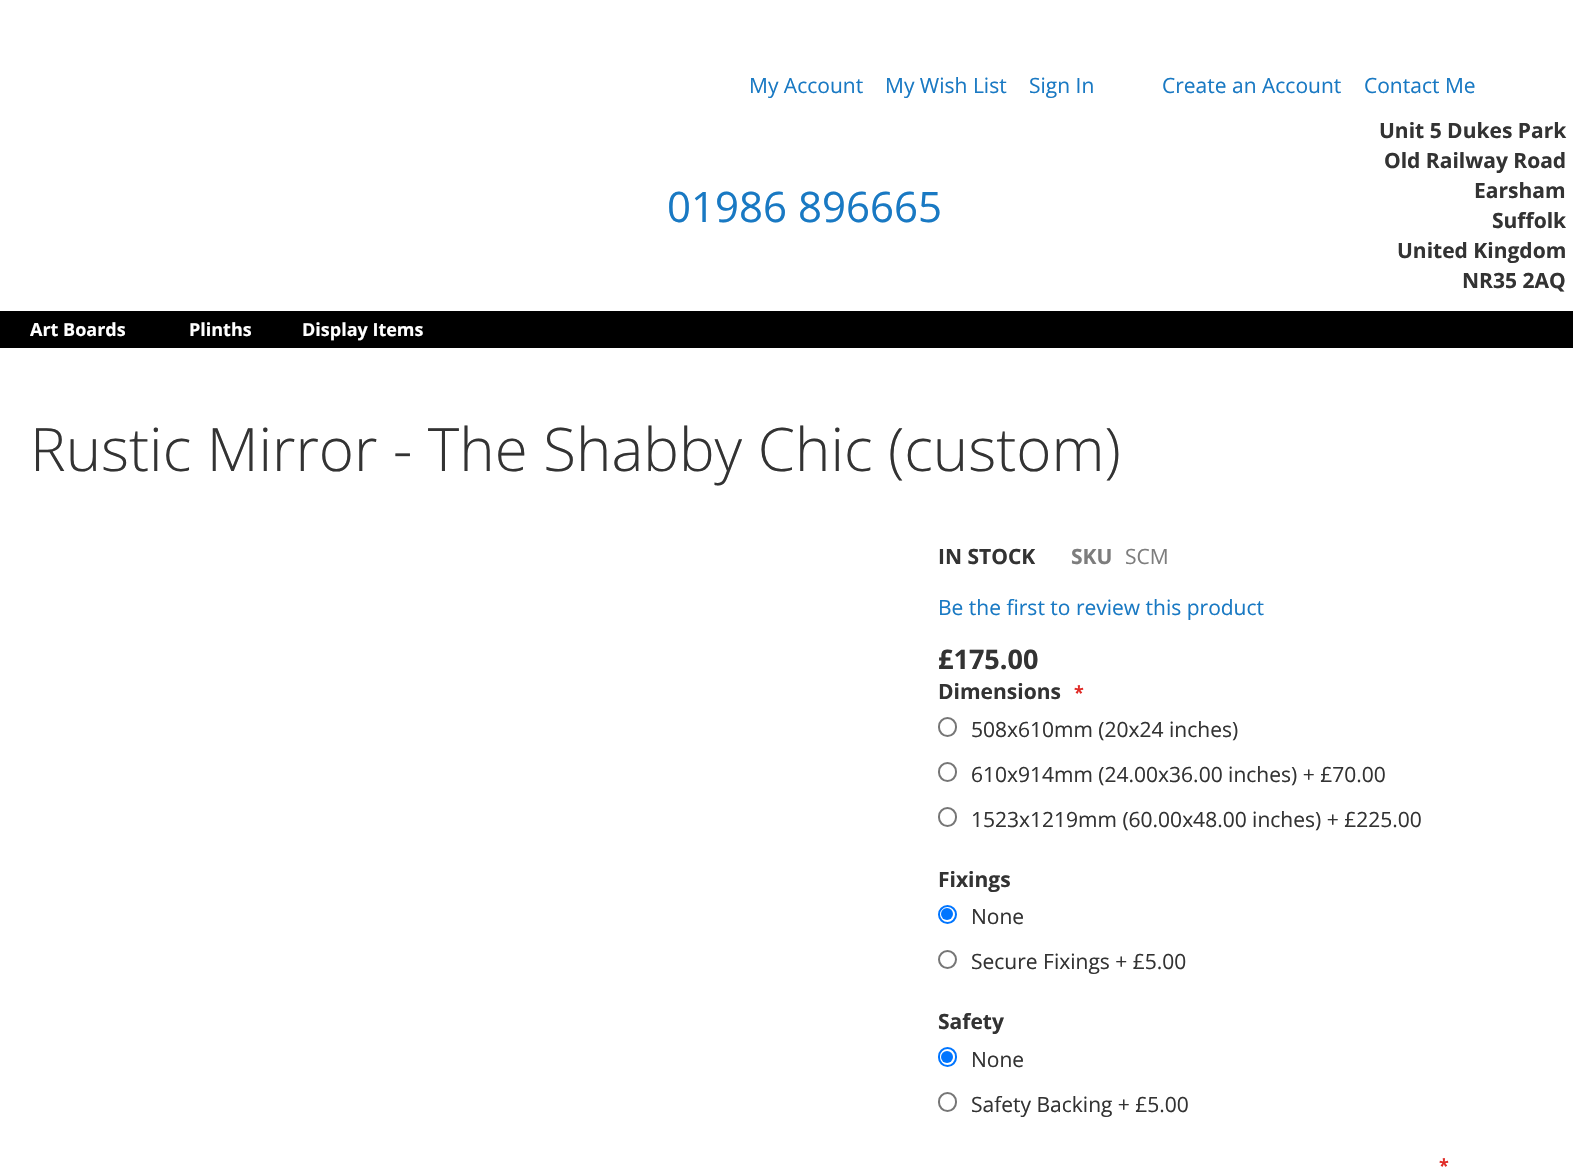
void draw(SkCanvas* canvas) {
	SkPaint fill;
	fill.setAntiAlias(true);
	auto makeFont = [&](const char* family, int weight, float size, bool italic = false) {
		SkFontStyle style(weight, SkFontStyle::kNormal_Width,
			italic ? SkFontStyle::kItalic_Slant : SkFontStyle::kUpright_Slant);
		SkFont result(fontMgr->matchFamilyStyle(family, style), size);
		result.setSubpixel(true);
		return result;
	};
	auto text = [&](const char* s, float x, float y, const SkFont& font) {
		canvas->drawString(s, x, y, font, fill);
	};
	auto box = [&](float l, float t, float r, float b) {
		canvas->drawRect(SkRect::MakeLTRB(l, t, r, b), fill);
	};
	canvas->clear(0xFFFFFFFF);
	fill.setColor(0xFF000000);
	box(0, 311, 1573, 348);
	fill.setStyle(SkPaint::kStroke_Style);
	fill.setStrokeWidth(2);
	fill.setColor(0xFF767676);
	canvas->drawRoundRect(SkRect::MakeLTRB(939, 718, 956, 736), 8.5f, 8.5f, fill);
	canvas->drawRoundRect(SkRect::MakeLTRB(939, 763, 956, 781), 8.5f, 8.5f, fill);
	canvas->drawRoundRect(SkRect::MakeLTRB(939, 808, 956, 826), 8.5f, 8.5f, fill);
	fill.setColor(0xFF0075FF);
	canvas->drawCircle(947.5f, 914.5f, 8.5f, fill);
	fill.setStyle(SkPaint::kFill_Style);
	canvas->drawCircle(947, 914, 6, fill);
	fill.setStyle(SkPaint::kStroke_Style);
	fill.setColor(0xFF767676);
	canvas->drawCircle(947.5f, 959.5f, 8.5f, fill);
	fill.setColor(0xFF0075FF);
	canvas->drawRoundRect(SkRect::MakeLTRB(939, 1048, 956, 1066), 8.5f, 8.5f, fill);
	fill.setStyle(SkPaint::kFill_Style);
	canvas->drawCircle(947, 1057, 6, fill);
	fill.setStyle(SkPaint::kStroke_Style);
	fill.setColor(0xFF767676);
	canvas->drawRoundRect(SkRect::MakeLTRB(939, 1093, 956, 1111), 8.5f, 8.5f, fill);
	auto font1 = makeFont("Open Sans", 400, 21);
	fill.setStyle(SkPaint::kFill_Style);
	fill.setColor(0xFF1979C3);
	text("My Account", 749, 93, font1);
	text("My Wish List", 885, 93, font1);
	text("Sign In", 1029, 93, font1);
	text("Create an Account", 1162, 93, font1);
	text("Contact Me", 1364, 93, font1);
	auto font2 = makeFont("Open Sans", 400, 42);
	text("01986 896665", 667, 222, font2);
	auto font3 = makeFont("Open Sans", 700, 21);
	fill.setColor(0xFF333333);
	text("Unit 5 Dukes Park", 1379, 138, font3);
	text("Old Railway Road", 1384, 168, font3);
	text("Earsham", 1474, 198, font3);
	text("Suffolk", 1492, 228, font3);
	text("United Kingdom", 1397, 258, font3);
	text("NR35 2AQ", 1462, 288, font3);
	auto font4 = makeFont("Open Sans", 700, 18);
	fill.setColor(0xFFFFFFFF);
	text("Art Boards", 30, 336, font4);
	text("Plinths", 189, 336, font4);
	text("Display Items", 302, 336, font4);
	auto font5 = makeFont("Open Sans", 300, 60);
	fill.setColor(0xFF333333);
	text("Rustic Mirror - The Shabby Chic (custom)", 30, 471, font5);
	text("IN STOCK", 938, 564, font3);
	fill.setColor(0xFF7D7D7D);
	text("SKU", 1071, 564, font3);
	text("SCM", 1125, 564, font1);
	fill.setColor(0xFF1979C3);
	text("Be the first to review this product", 938, 615, font1);
	auto font6 = makeFont("Open Sans", 700, 27);
	fill.setColor(0xFF333333);
	text("£175.00", 938, 669, font6);
	text("Dimensions", 938, 699, font3);
	fill.setColor(0xFFE02B27);
	text("*", 1074, 699, font4);
	fill.setColor(0xFF333333);
	text("508x610mm (20x24 inches)", 971, 737, font1);
	text("610x914mm (24.00x36.00 inches) + £70.00", 971, 782, font1);
	text("1523x1219mm (60.00x48.00 inches) + £225.00", 971, 827, font1);
	text("Fixings", 938, 887, font3);
	text("None", 971, 924, font1);
	text("Secure Fixings + £5.00", 971, 969, font1);
	text("Safety", 938, 1029, font3);
	text("None", 971, 1067, font1);
	text("Safety Backing + £5.00", 971, 1112, font1);
	fill.setColor(0xFFE02B27);
	text("*", 1439, 1172, font4);
}
